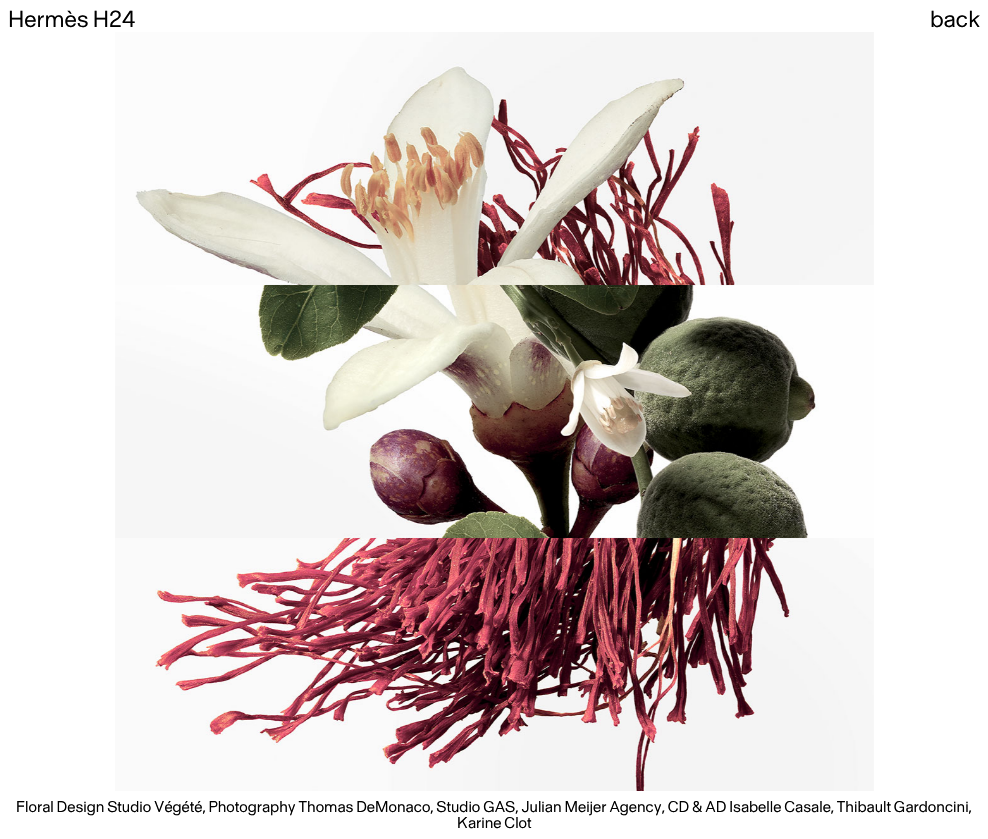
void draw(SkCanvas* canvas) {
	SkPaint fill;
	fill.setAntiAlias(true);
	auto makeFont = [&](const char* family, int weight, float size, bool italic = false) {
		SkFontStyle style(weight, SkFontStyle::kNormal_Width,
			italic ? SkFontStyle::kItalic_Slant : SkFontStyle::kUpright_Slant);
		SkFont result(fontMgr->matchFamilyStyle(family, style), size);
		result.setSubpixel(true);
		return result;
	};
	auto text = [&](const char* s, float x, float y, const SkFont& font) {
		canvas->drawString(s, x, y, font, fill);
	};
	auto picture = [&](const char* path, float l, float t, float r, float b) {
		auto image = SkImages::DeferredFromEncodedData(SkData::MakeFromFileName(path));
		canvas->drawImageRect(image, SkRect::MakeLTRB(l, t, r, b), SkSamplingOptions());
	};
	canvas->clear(0xFFFFFFFF);
	picture("image0.png", 115, 32, 874, 791);
	auto font1 = makeFont("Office", 400, 24);
	fill.setColor(0xFF000000);
	text("Hermès H24", 8, 27, font1);
	text("back", 930, 27, font1);
	auto font2 = makeFont("Office", 400, 16);
	text("Floral Design Studio Végété, Photography Thomas DeMonaco, Studio GAS, Julian Meijer Agency, CD & AD Isabelle Casale, Thibault Gardoncini,", 16, 812, font2);
	text("Karine Clot", 457, 828, font2);
}
